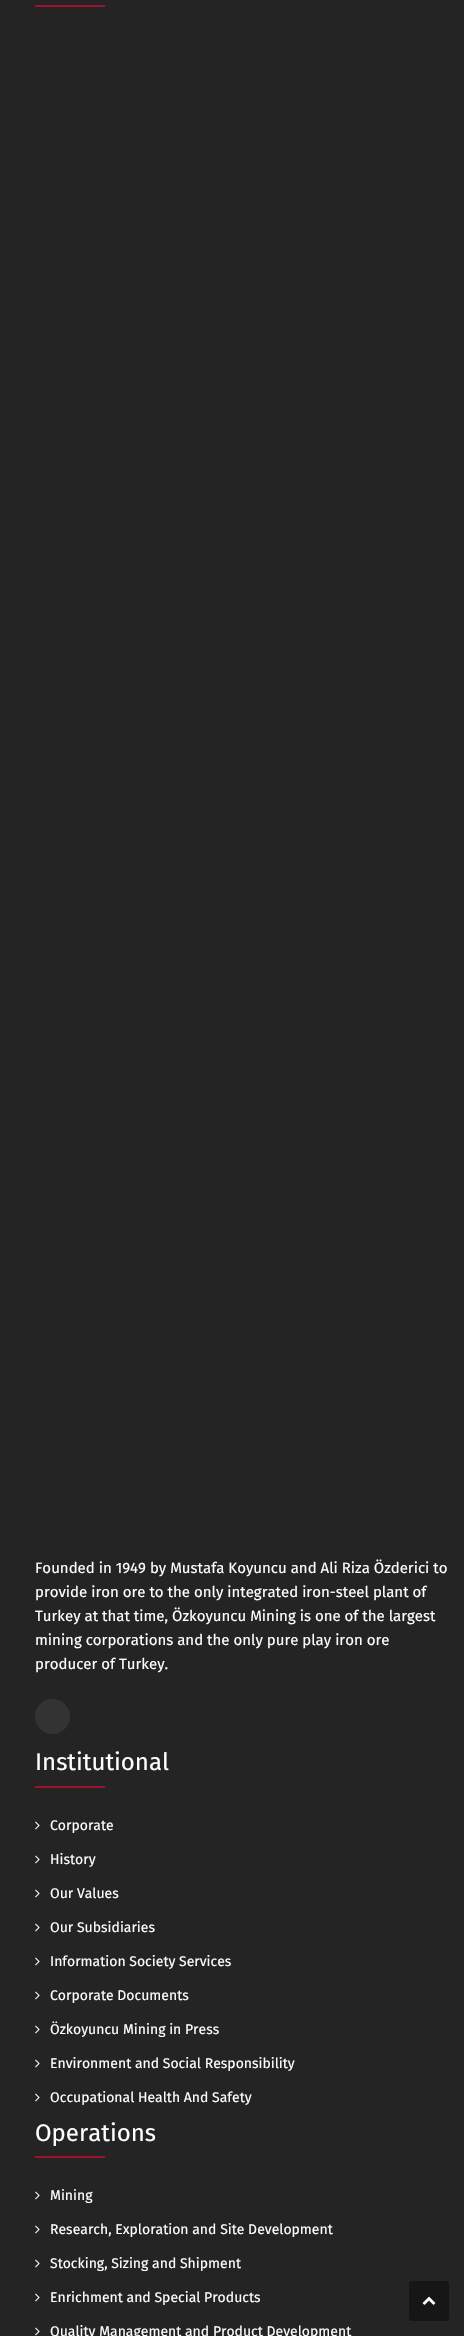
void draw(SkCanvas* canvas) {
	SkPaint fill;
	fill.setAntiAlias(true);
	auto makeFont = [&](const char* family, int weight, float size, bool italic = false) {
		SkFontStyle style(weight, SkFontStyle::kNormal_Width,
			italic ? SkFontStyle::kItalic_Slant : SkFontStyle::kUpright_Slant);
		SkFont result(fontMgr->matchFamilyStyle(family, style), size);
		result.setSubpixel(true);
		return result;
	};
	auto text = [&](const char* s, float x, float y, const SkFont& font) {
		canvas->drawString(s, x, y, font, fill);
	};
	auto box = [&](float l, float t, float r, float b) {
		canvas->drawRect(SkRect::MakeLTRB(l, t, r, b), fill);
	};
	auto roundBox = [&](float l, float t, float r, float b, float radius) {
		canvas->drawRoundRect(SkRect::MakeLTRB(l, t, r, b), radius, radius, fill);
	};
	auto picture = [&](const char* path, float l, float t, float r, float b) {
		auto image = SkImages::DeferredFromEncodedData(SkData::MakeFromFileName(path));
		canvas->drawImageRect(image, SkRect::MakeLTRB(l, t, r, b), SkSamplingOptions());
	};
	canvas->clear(0xFF242424);
	fill.setColor(0xFF9D132D);
	box(35, 5, 105, 7);
	fill.setColor(0xFF333333);
	canvas->drawCircle(52.5f, 1716.5f, 17.5f, fill);
	fill.setColor(0xFF9D132D);
	box(35, 1786, 105, 1788);
	picture("image0.png", 35, 1821, 40, 1830);
	picture("image0.png", 35, 1855, 40, 1864);
	picture("image0.png", 35, 1889, 40, 1898);
	picture("image0.png", 35, 1923, 40, 1932);
	picture("image0.png", 35, 1957, 40, 1966);
	picture("image0.png", 35, 1991, 40, 2000);
	picture("image0.png", 35, 2025, 40, 2034);
	picture("image0.png", 35, 2059, 40, 2068);
	picture("image0.png", 35, 2093, 40, 2102);
	box(35, 2156, 105, 2158);
	picture("image0.png", 35, 2191, 40, 2200);
	picture("image0.png", 35, 2225, 40, 2234);
	picture("image0.png", 35, 2259, 40, 2268);
	picture("image0.png", 35, 2293, 40, 2302);
	picture("image0.png", 35, 2327, 40, 2336);
	fill.setColor(0xFF161616);
	roundBox(409, 2281, 449, 2321, 2);
	picture("image1.png", 422, 2296, 436, 2305);
	auto font1 = makeFont("Fira Sans", 400, 15);
	fill.setColor(0xFFFFFFFF);
	text("Founded in 1949 by Mustafa Koyuncu and Ali Riza Özderici to", 35, 1573, font1);
	text("provide iron ore to the only integrated iron-steel plant of", 35, 1597, font1);
	text("Turkey at that time, Özkoyuncu Mining is one of the largest", 35, 1621, font1);
	text("mining corporations and the only pure play iron ore", 35, 1645, font1);
	text("producer of Turkey.", 35, 1669, font1);
	auto font2 = makeFont("Fira Sans", 400, 24);
	text("Institutional", 35, 1770, font2);
	auto font3 = makeFont("Fira Sans", 400, 14);
	text("Corporate", 50, 1830, font3);
	text("History", 50, 1864, font3);
	text("Our Values", 50, 1898, font3);
	text("Our Subsidiaries", 50, 1932, font3);
	text("Information Society Services", 50, 1966, font3);
	text("Corporate Documents", 50, 2000, font3);
	text("Özkoyuncu Mining in Press", 50, 2034, font3);
	text("Environment and Social Responsibility", 50, 2068, font3);
	text("Occupational Health And Safety", 50, 2102, font3);
	text("Operations", 35, 2141, font2);
	text("Mining", 50, 2200, font3);
	text("Research, Exploration and Site Development", 50, 2234, font3);
	text("Stocking, Sizing and Shipment", 50, 2268, font3);
	text("Enrichment and Special Products", 50, 2302, font3);
	text("Quality Management and Product Development", 50, 2336, font3);
}
